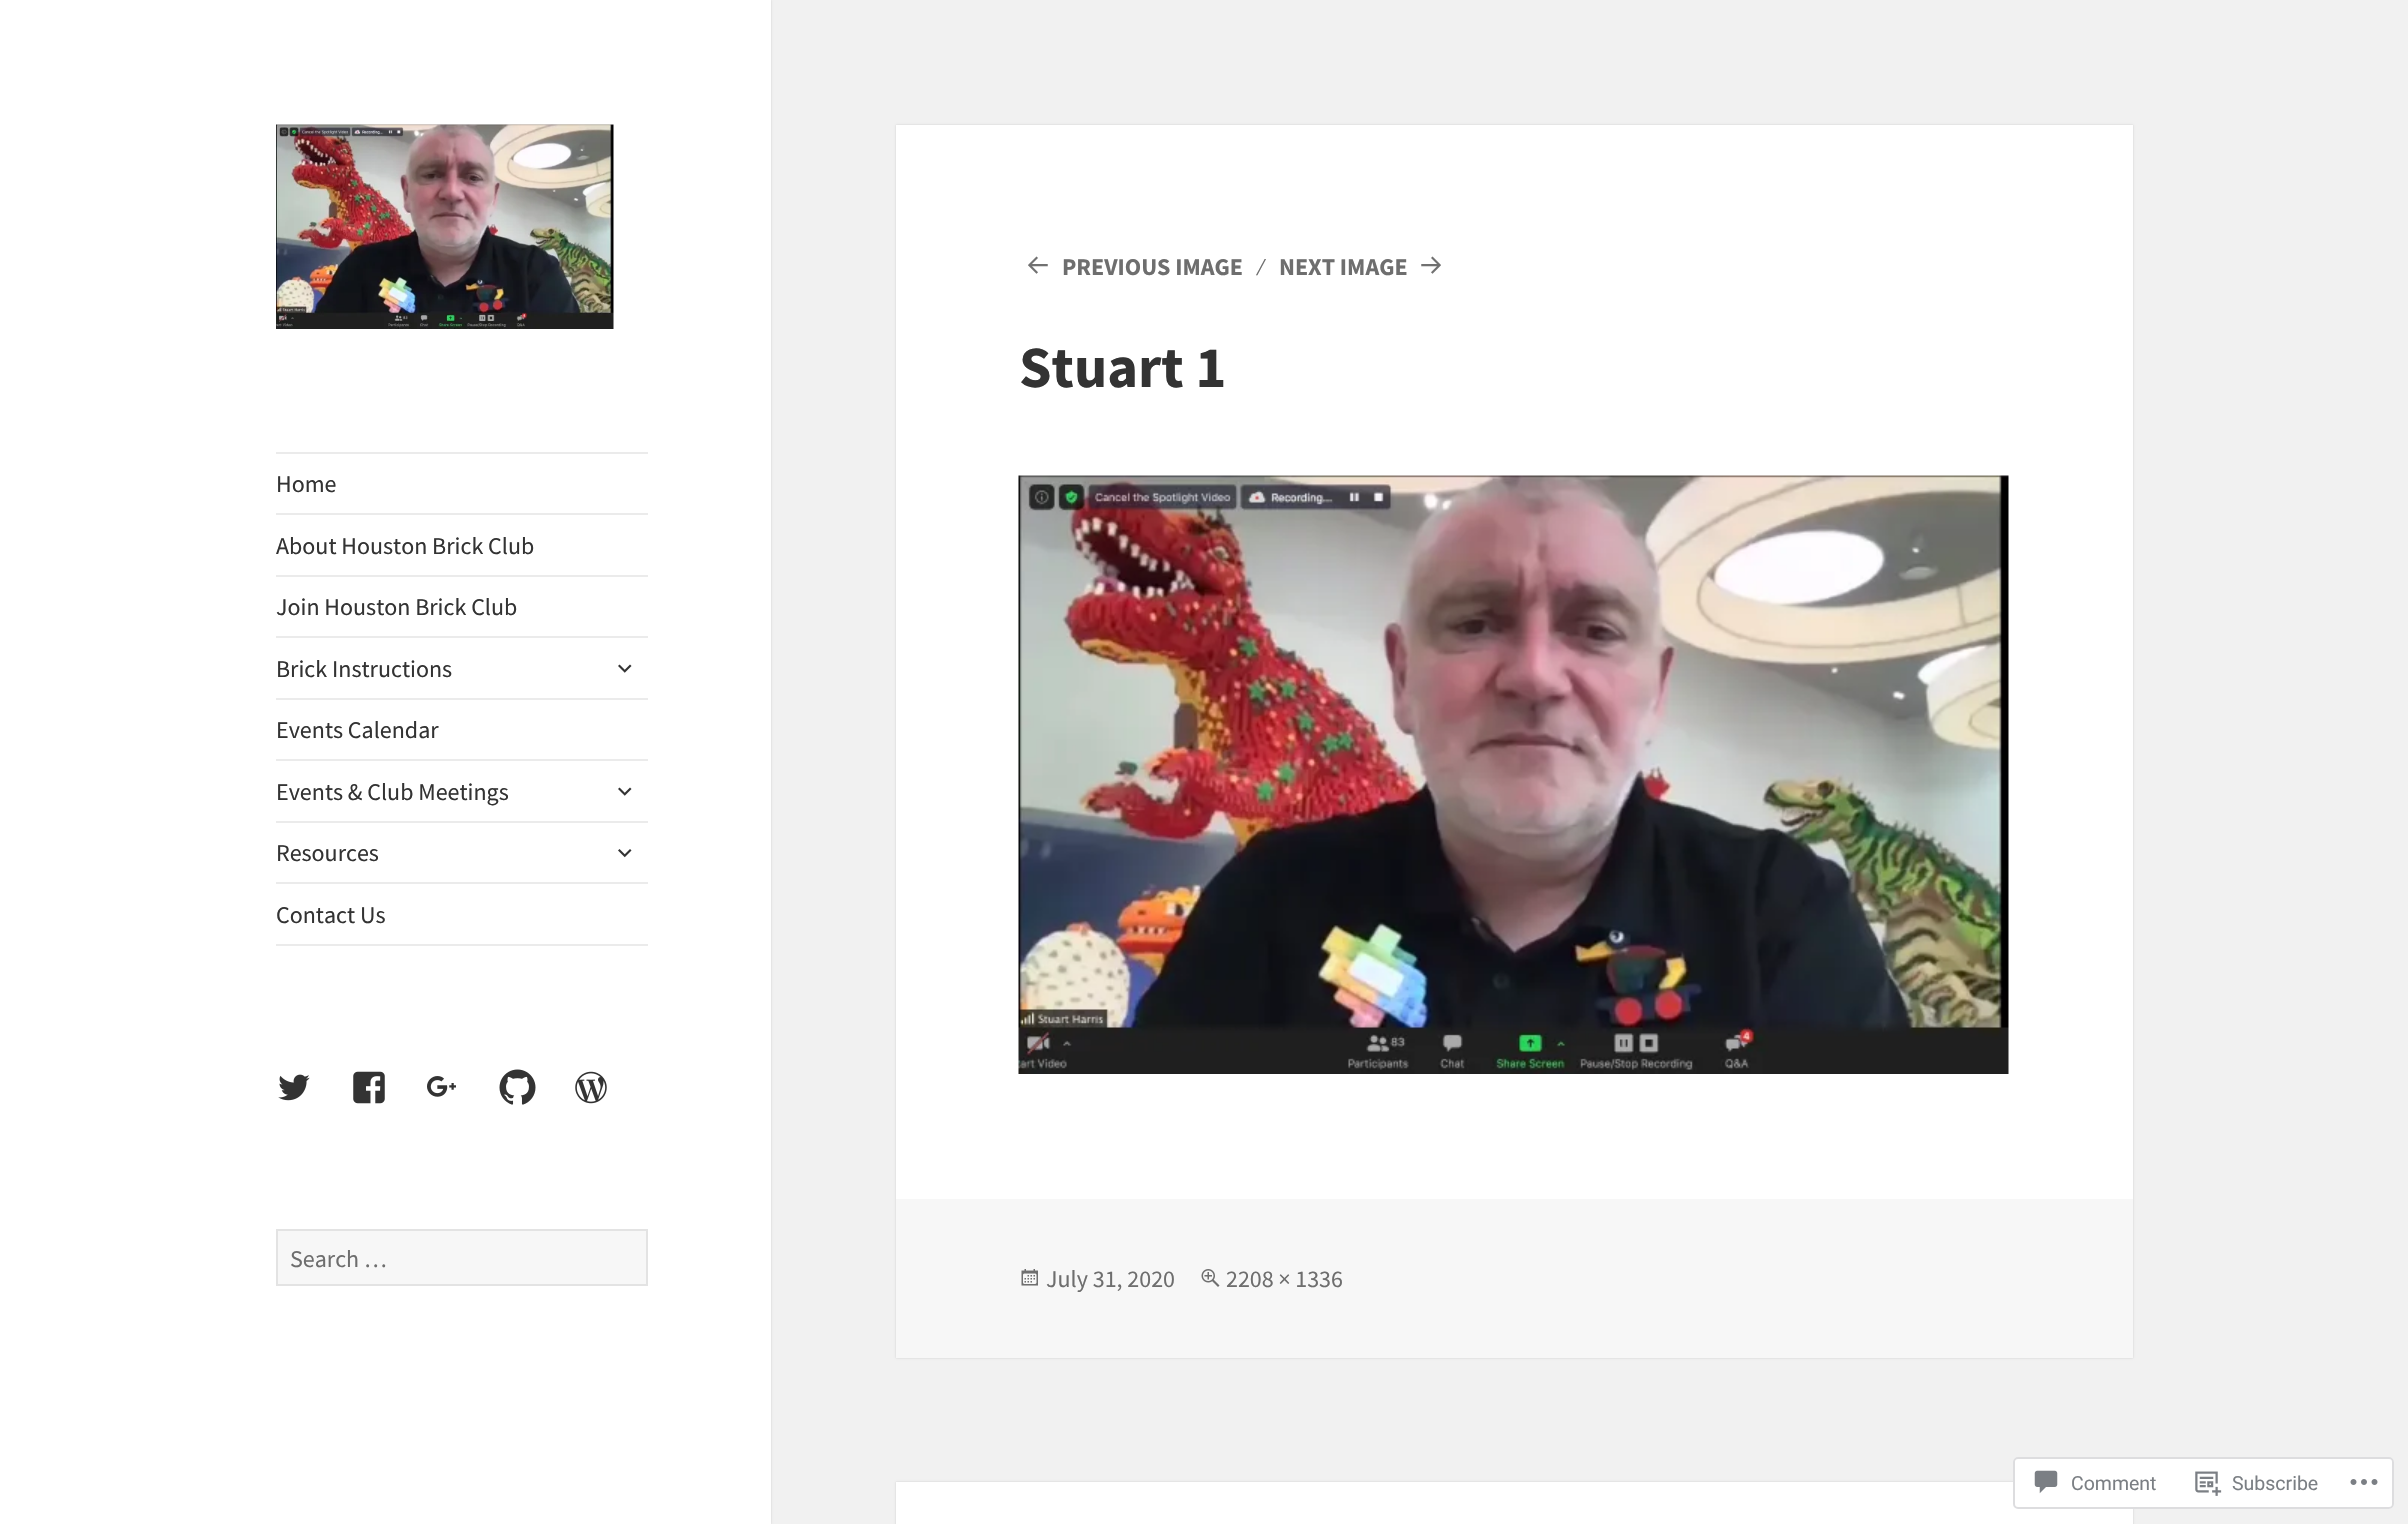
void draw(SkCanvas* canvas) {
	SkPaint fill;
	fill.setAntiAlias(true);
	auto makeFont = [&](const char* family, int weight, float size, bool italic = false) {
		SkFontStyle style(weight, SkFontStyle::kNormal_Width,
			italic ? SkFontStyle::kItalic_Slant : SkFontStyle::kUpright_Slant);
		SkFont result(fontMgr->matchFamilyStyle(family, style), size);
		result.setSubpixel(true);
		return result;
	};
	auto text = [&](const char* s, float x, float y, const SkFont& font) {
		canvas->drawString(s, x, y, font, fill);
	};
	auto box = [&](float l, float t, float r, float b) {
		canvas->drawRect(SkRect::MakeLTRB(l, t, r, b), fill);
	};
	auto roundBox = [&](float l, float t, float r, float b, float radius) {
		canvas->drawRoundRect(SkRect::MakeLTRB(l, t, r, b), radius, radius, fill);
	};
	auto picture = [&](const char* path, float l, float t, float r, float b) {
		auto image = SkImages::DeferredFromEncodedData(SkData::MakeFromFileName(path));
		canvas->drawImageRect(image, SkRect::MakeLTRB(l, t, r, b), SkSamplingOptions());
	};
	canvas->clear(0xFFF1F1F1);
	fill.setColor(0x26000000);
	fill.setMaskFilter(SkMaskFilter::MakeBlur(kNormal_SkBlurStyle, 1));
	canvas->drawRect(SkRect::MakeLTRB(0, 0, 771, 1524), fill);
	fill.setMaskFilter(nullptr);
	fill.setColor(0xFFFFFFFF);
	box(0, 0, 771, 1524);
	picture("image0.png", 276, 124, 614, 329);
	fill.setColor(0xFFEBEBEB);
	box(276, 452, 648, 454);
	box(276, 944, 648, 946);
	box(276, 513, 648, 515);
	box(276, 575, 648, 577);
	box(276, 636, 648, 638);
	picture("image1.png", 618, 664, 632, 673);
	box(276, 698, 648, 700);
	box(276, 759, 648, 761);
	picture("image1.png", 618, 787, 632, 796);
	box(276, 821, 648, 823);
	picture("image2.png", 618, 849, 632, 858);
	box(276, 882, 648, 884);
	picture("image3.png", 278, 1074, 310, 1101);
	picture("image4.png", 353, 1071, 385, 1104);
	picture("image5.png", 427, 1076, 456, 1097);
	picture("image6.png", 499, 1069, 536, 1105);
	picture("image7.png", 575, 1071, 607, 1104);
	fill.setColor(0xFFF7F7F7);
	canvas->drawRect(SkRect::MakeLTRB(277, 1230, 647, 1285), fill);
	fill.setStyle(SkPaint::kStroke_Style);
	fill.setStrokeWidth(2);
	fill.setColor(0xFFE3E3E3);
	canvas->drawRect(SkRect::MakeLTRB(277, 1230, 647, 1285), fill);
	fill.setStyle(SkPaint::kFill_Style);
	fill.setColor(0x26000000);
	fill.setMaskFilter(SkMaskFilter::MakeBlur(kNormal_SkBlurStyle, 1));
	canvas->drawRect(SkRect::MakeLTRB(896, 125, 2133, 1358), fill);
	fill.setMaskFilter(nullptr);
	fill.setColor(0xFFFFFFFF);
	box(896, 125, 2133, 1199);
	picture("image8.png", 1028, 256, 1048, 274);
	picture("image9.png", 1421, 256, 1441, 274);
	picture("image10.png", 1018, 475, 2009, 1074);
	fill.setColor(0xFFF7F7F7);
	box(896, 1199, 2133, 1358);
	picture("image11.png", 1021, 1269, 1038, 1286);
	picture("image12.png", 1201, 1269, 1220, 1287);
	fill.setColor(0x26000000);
	fill.setMaskFilter(SkMaskFilter::MakeBlur(kNormal_SkBlurStyle, 1));
	canvas->drawRect(SkRect::MakeLTRB(896, 1482, 2133, 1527), fill);
	fill.setMaskFilter(nullptr);
	fill.setColor(0xFFFFFFFF);
	box(896, 1482, 2133, 1524);
	fill.setColor(0xFAFFFFFF);
	roundBox(2013, 1457, 2394, 1509, 5);
	fill.setStyle(SkPaint::kStroke_Style);
	fill.setColor(0xFADCDCDE);
	canvas->drawRoundRect(SkRect::MakeLTRB(2014, 1458, 2393, 1508), 4, 4, fill);
	picture("image13.png", 2034, 1470, 2058, 1494);
	picture("image14.png", 2195, 1471, 2222, 1496);
	picture("image15.png", 2350, 1479, 2378, 1485);
	auto font1 = makeFont("Source Sans Pro", 400, 24);
	fill.setStyle(SkPaint::kFill_Style);
	fill.setColor(0xFF333333);
	text("Home", 276, 492, font1);
	text("About Houston Brick Club", 276, 554, font1);
	text("Join Houston Brick Club", 276, 615, font1);
	text("Brick Instructions", 276, 677, font1);
	text("Events Calendar", 276, 738, font1);
	text("Events & Club Meetings", 276, 800, font1);
	text("Resources", 276, 861, font1);
	text("Contact Us", 276, 923, font1);
	fill.setColor(0xFF6E6E6E);
	text("Search …", 290, 1267, font1);
	auto font2 = makeFont("Source Sans Pro", 700, 24);
	text("PREVIOUS IMAGE", 1062, 275, font2);
	text("∕", 1260, 275, font1);
	text("NEXT IMAGE", 1279, 275, font2);
	auto font3 = makeFont("Source Sans Pro", 700, 58.5f);
	fill.setColor(0xFF333333);
	text("Stuart 1", 1019, 387, font3);
	fill.setColor(0xFF6E6E6E);
	text("July 31, 2020", 1046, 1287, font1);
	text("2208 × 1336", 1226, 1287, font1);
	auto font4 = makeFont("Roboto", 400, 19.5f);
	fill.setColor(0xFF7B7F84);
	text("Comment", 2071, 1490, font4);
	text("Subscribe", 2232, 1490, font4);
}
